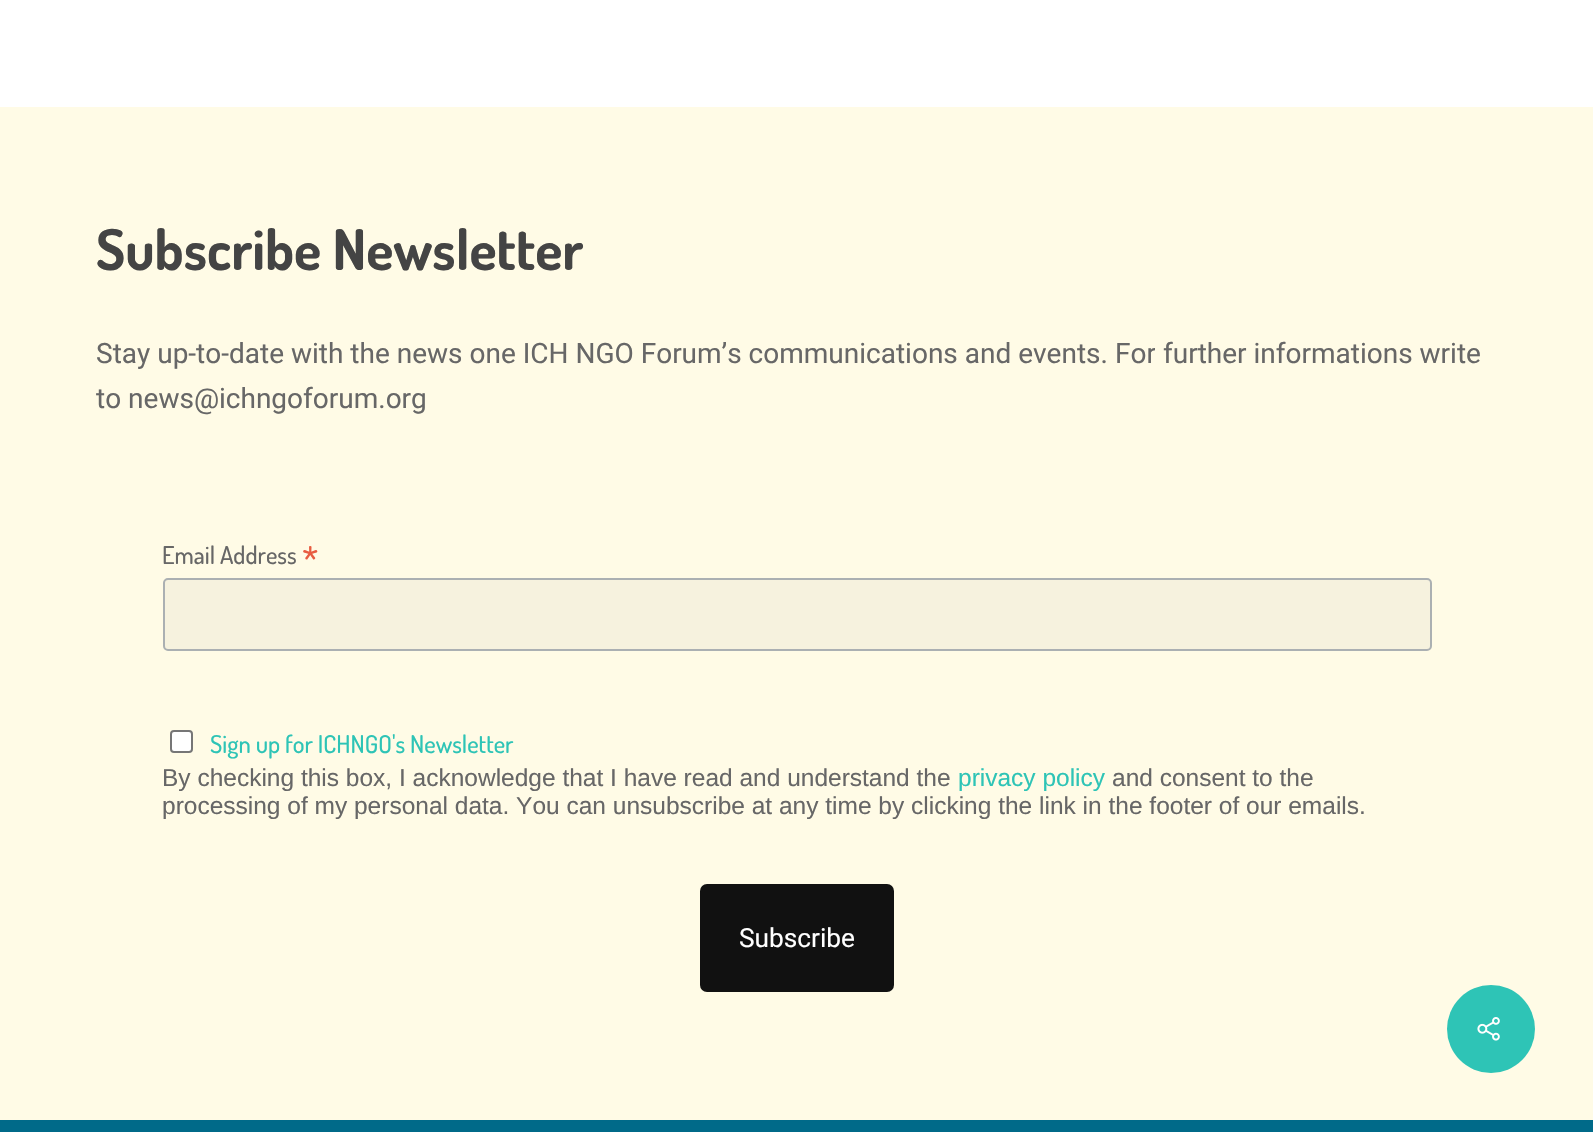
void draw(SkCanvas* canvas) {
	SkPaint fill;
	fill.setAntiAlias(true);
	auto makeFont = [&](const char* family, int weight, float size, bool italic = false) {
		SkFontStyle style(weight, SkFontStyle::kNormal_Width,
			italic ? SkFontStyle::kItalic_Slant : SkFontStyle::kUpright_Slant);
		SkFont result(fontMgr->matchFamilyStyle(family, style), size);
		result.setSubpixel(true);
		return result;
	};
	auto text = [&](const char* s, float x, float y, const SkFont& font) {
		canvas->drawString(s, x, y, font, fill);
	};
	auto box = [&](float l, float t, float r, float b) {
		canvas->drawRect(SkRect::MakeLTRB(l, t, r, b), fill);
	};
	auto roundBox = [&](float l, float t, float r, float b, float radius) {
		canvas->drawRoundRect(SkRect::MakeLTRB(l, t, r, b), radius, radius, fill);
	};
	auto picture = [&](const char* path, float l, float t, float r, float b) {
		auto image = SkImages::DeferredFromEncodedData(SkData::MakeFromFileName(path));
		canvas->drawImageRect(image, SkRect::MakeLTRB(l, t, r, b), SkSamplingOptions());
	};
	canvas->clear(0xFFFFFFFF);
	fill.setColor(0xFFFFFBE6);
	box(0, 107, 1593, 1120);
	fill.setColor(0xFFF6F2DE);
	canvas->drawRoundRect(SkRect::MakeLTRB(164, 579, 1431, 650), 4, 4, fill);
	fill.setStyle(SkPaint::kStroke_Style);
	fill.setStrokeWidth(2);
	fill.setColor(0xFFABB0B2);
	canvas->drawRoundRect(SkRect::MakeLTRB(164, 579, 1431, 650), 4, 4, fill);
	fill.setStyle(SkPaint::kFill_Style);
	fill.setColor(0xFFFFFFFF);
	canvas->drawRoundRect(SkRect::MakeLTRB(171, 731, 192, 752), 3, 3, fill);
	fill.setStyle(SkPaint::kStroke_Style);
	fill.setColor(0xFF767676);
	canvas->drawRoundRect(SkRect::MakeLTRB(171, 731, 192, 752), 3, 3, fill);
	fill.setStyle(SkPaint::kFill_Style);
	fill.setColor(0xFF111111);
	roundBox(700, 884, 894, 992, 7);
	fill.setColor(0xFF2EC4B6);
	canvas->drawCircle(1491, 1029, 44, fill);
	picture("image0.png", 1477, 1017, 1500, 1041);
	fill.setColor(0xFF006A89);
	box(0, 1120, 1593, 1132);
	auto font1 = makeFont("Dosis", 700, 56);
	fill.setColor(0xFF444444);
	text("Subscribe Newsletter", 96, 270, font1);
	auto font2 = makeFont("Roboto", 400, 28);
	fill.setColor(0xFF676767);
	text("Stay up-to-date with the news one ICH NGO Forum’s communications and events.", 96, 363, font2);
	canvas->save();
	canvas->clipRect(SkRect::MakeLTRB(1115, 336, 1155, 369));
	text("For", 1115, 363, font2);
	canvas->restore();
	text("further informations write", 1163, 363, font2);
	text("to news@ichngoforum.org", 96, 408, font2);
	auto font3 = makeFont("Dosis", 500, 24.5f);
	text("Email Address", 162, 564, font3);
	auto font4 = makeFont("Dosis", 500, 37);
	fill.setColor(0xFFE85C41);
	text("*", 302, 573, font4);
	fill.setColor(0xFF2EC4B6);
	text("Sign up for ICHNGO's Newsletter", 210, 753, font3);
	auto font5 = makeFont("Liberation Sans", 400, 24.5f);
	fill.setColor(0xFF676767);
	text("By checking this box, I acknowledge that I have read and understand the", 162, 786, font5);
	fill.setColor(0xFF2EC4B6);
	text("privacy policy", 958, 786, font5);
	fill.setColor(0xFF676767);
	text("and consent to the", 1112, 786, font5);
	text("processing of my personal data. You can unsubscribe at any time by clicking the link in the footer of our emails.", 162, 814, font5);
	auto font6 = makeFont("Roboto", 400, 26.25f);
	fill.setColor(0xFFFFFFFF);
	text("Subscribe", 739, 947, font6);
}
